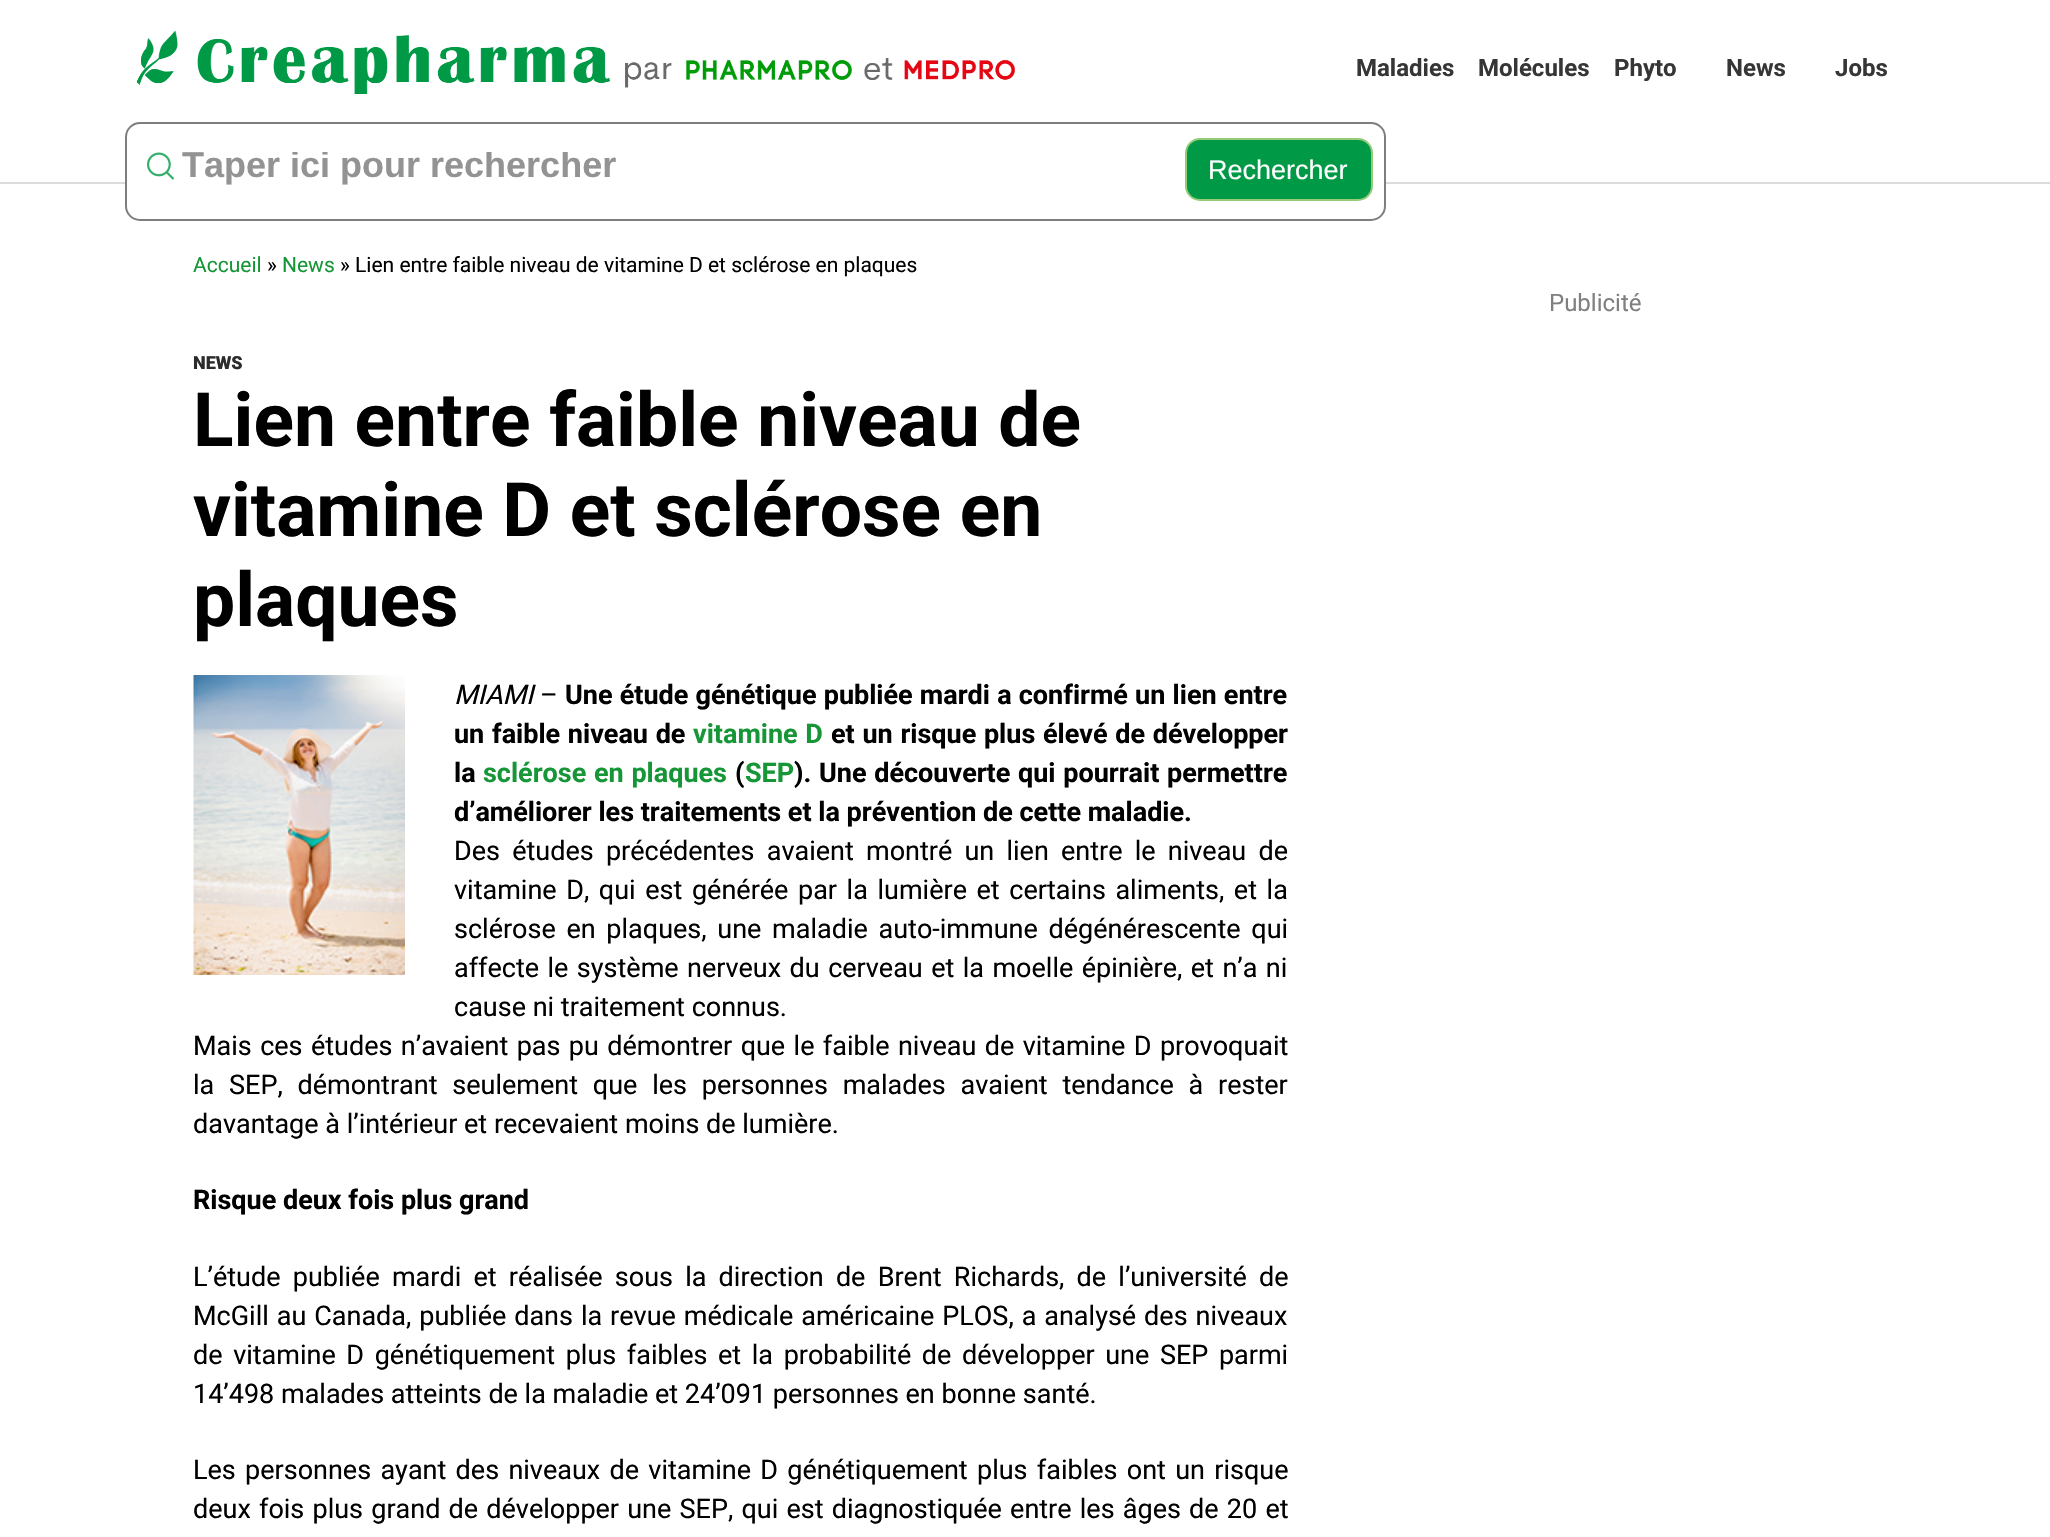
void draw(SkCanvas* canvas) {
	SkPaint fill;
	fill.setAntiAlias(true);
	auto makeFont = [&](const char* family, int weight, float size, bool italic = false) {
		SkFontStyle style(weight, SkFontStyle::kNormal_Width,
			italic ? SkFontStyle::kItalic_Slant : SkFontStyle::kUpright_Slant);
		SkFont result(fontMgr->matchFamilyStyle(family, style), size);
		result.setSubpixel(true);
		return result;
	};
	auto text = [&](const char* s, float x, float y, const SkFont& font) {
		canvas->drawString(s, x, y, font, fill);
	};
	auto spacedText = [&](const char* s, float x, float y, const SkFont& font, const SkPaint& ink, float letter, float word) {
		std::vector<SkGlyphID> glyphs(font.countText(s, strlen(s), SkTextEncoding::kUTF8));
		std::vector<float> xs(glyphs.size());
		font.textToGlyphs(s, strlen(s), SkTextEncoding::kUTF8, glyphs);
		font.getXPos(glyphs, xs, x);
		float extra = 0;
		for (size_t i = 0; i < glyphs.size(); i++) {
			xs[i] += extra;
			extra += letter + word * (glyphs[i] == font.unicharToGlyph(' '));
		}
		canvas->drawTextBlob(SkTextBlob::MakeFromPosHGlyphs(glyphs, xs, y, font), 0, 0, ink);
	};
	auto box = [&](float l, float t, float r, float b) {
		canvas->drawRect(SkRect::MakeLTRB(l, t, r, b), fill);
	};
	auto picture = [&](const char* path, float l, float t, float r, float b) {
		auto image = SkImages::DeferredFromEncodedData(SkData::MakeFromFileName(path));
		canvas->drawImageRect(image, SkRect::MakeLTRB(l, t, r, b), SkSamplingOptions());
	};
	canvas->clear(0xFFFFFFFF);
	fill.setColor(0xFFDCDBDB);
	box(0, 182, 2050, 184);
	picture("image0.png", 136, 30, 1015, 94);
	fill.setColor(0xFFFFFFFF);
	canvas->drawRoundRect(SkRect::MakeLTRB(126, 123, 1385, 220), 14, 14, fill);
	fill.setStyle(SkPaint::kStroke_Style);
	fill.setStrokeWidth(2);
	fill.setColor(0xFF7E7E7E);
	canvas->drawRoundRect(SkRect::MakeLTRB(126, 123, 1385, 220), 14, 14, fill);
	picture("image1.png", 147, 152, 174, 180);
	fill.setStyle(SkPaint::kFill_Style);
	fill.setColor(0xFF009946);
	canvas->drawRoundRect(SkRect::MakeLTRB(1186, 139, 1372, 200), 14, 14, fill);
	fill.setStyle(SkPaint::kStroke_Style);
	fill.setColor(0xFF94CC7A);
	canvas->drawRoundRect(SkRect::MakeLTRB(1186, 139, 1372, 200), 14, 14, fill);
	picture("image2.png", 193, 675, 405, 975);
	auto font1 = makeFont("Roboto", 700, 24);
	fill.setStyle(SkPaint::kFill_Style);
	fill.setColor(0xFF363636);
	text("Maladies", 1356, 76, font1);
	text("Molécules", 1478, 76, font1);
	text("Phyto", 1614, 76, font1);
	text("News", 1726, 76, font1);
	text("Jobs", 1835, 76, font1);
	canvas->save();
	canvas->clipRect(SkRect::MakeLTRB(182, 152, 1145, 185));
	auto font2 = makeFont("Liberation Sans", 700, 36);
	fill.setColor(0xFF939393);
	text("Taper ici pour rechercher", 182, 177, font2);
	canvas->restore();
	auto font3 = makeFont("Liberation Sans", 400, 27);
	fill.setColor(0xFFFFFFFF);
	text("Rechercher", 1208, 179, font3);
	auto font4 = makeFont("Roboto", 400, 21);
	fill.setColor(0xFF179638);
	text("Accueil", 193, 272, font4);
	fill.setColor(0xFF000000);
	text("»", 267, 272, font4);
	fill.setColor(0xFF179638);
	text("News", 282, 272, font4);
	fill.setColor(0xFF000000);
	text("» Lien entre faible niveau de vitamine D et sclérose en plaques", 340, 272, font4);
	auto font5 = makeFont("Roboto", 900, 18);
	fill.setColor(0xFF2B2B2B);
	text("NEWS", 193, 369, font5);
	auto font6 = makeFont("Roboto", 700, 75);
	fill.setColor(0xFF000000);
	text("Lien entre faible niveau de", 193, 446, font6);
	text("vitamine D et sclérose en", 193, 536, font6);
	text("plaques", 193, 626, font6);
	auto font7 = makeFont("Roboto", 400, 27, true);
	text("MIAMI", 454, 704, font7);
	auto font8 = makeFont("Roboto", 400, 27);
	text("–", 540, 704, font8);
	auto font9 = makeFont("Roboto", 700, 27);
	spacedText("Une étude génétique publiée mardi a confirmé un lien entre", 565, 704, font9, fill, 0, 0.5f);
	spacedText("un faible niveau de", 454, 743, font9, fill, 0, 1);
	fill.setColor(0xFF179638);
	spacedText("vitamine D", 693, 743, font9, fill, 0, 1);
	fill.setColor(0xFF000000);
	spacedText("et un risque plus élevé de développer", 831, 743, font9, fill, 0, 1);
	text("la", 454, 782, font9);
	fill.setColor(0xFF179638);
	spacedText("sclérose en plaques", 483, 782, font9, fill, 0, 1);
	fill.setColor(0xFF000000);
	text("(", 735, 782, font9);
	fill.setColor(0xFF179638);
	text("SEP", 745, 782, font9);
	fill.setColor(0xFF000000);
	spacedText("). Une découverte qui pourrait permettre", 794, 782, font9, fill, 0, 1);
	text("d’améliorer les traitements et la prévention de cette maladie.", 454, 821, font9);
	spacedText("Des études précédentes avaient montré un lien entre le niveau de", 454, 860, font8, fill, 0, 5.5f);
	spacedText("vitamine D, qui est générée par la lumière et certains aliments, et la", 454, 899, font8, fill, 0, 2.9f);
	spacedText("sclérose en plaques, une maladie auto-immune dégénérescente qui", 454, 938, font8, fill, 0, 4);
	spacedText("affecte le système nerveux du cerveau et la moelle épinière, et n’a ni", 454, 977, font8, fill, 0, 1.75f);
	text("cause ni traitement connus.", 454, 1016, font8);
	spacedText("Mais ces études n’avaient pas pu démontrer que le faible niveau de vitamine D provoquait", 193, 1055, font8, fill, 0, 1.7f);
	spacedText("la SEP, démontrant seulement que les personnes malades avaient tendance à rester", 193, 1094, font8, fill, 0, 8.1f);
	text("davantage à l’intérieur et recevaient moins de lumière.", 193, 1133, font8);
	text("Risque deux fois plus grand", 193, 1209, font9);
	spacedText("L’étude publiée mardi et réalisée sous la direction de Brent Richards, de l’université de", 193, 1286, font8, fill, 0, 5.5f);
	spacedText("McGill au Canada, publiée dans la revue médicale américaine PLOS, a analysé des niveaux", 193, 1325, font8, fill, 0, 1.25f);
	spacedText("de vitamine D génétiquement plus faibles et la probabilité de développer une SEP parmi", 193, 1364, font8, fill, 0, 3.9f);
	text("14’498 malades atteints de la maladie et 24’091 personnes en bonne santé.", 193, 1403, font8);
	spacedText("Les personnes ayant des niveaux de vitamine D génétiquement plus faibles ont un risque", 193, 1479, font8, fill, 0, 2.6f);
	spacedText("deux fois plus grand de développer une SEP, qui est diagnostiquée entre les âges de 20 et", 193, 1518, font8, fill, 0, 1.5f);
	auto font10 = makeFont("Roboto", 400, 24);
	fill.setColor(0xFF808080);
	text("Publicité", 1549, 311, font10);
}
